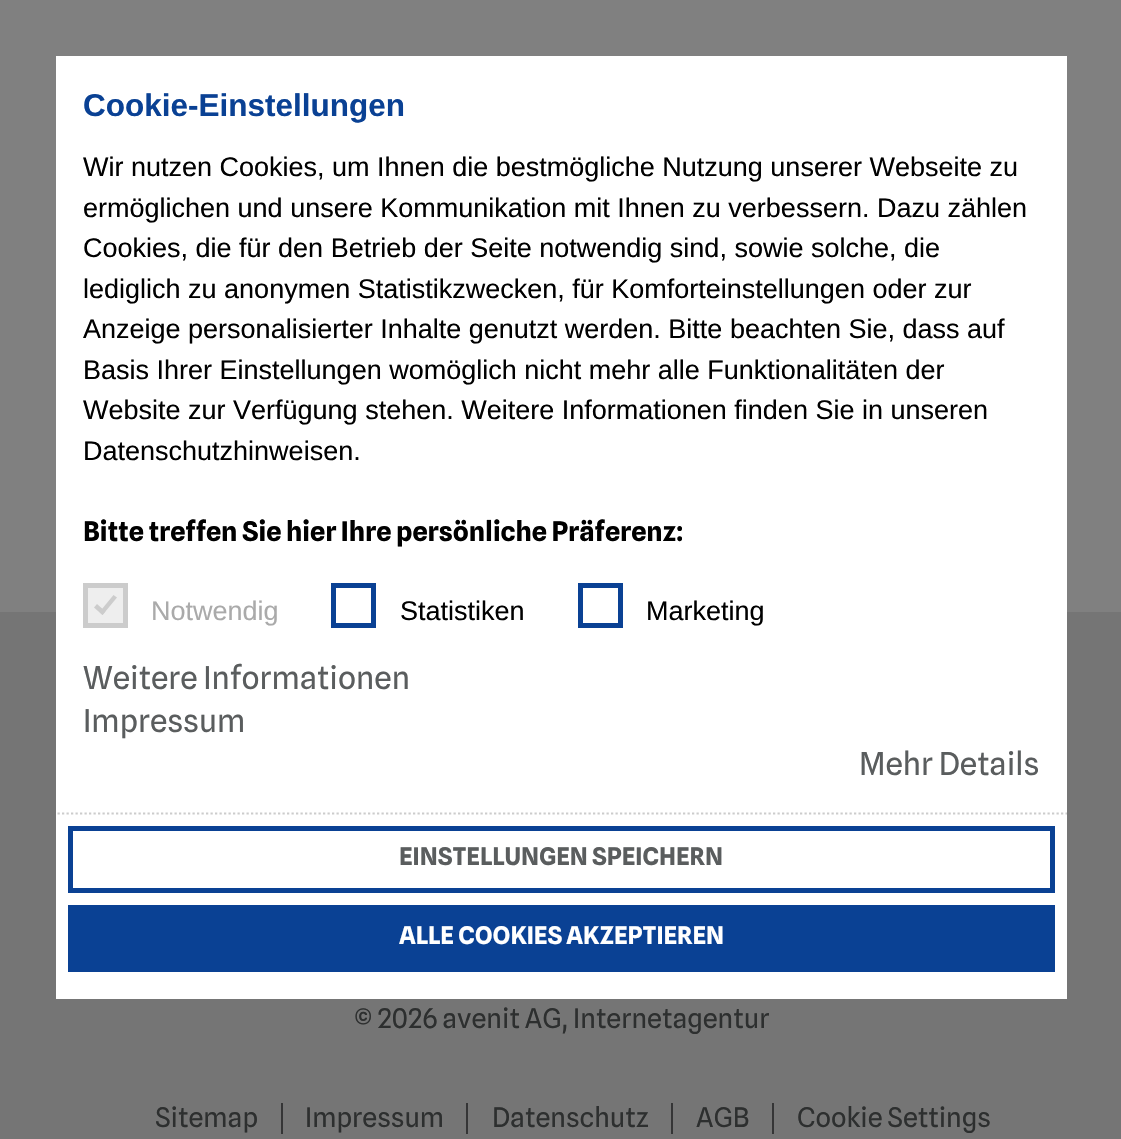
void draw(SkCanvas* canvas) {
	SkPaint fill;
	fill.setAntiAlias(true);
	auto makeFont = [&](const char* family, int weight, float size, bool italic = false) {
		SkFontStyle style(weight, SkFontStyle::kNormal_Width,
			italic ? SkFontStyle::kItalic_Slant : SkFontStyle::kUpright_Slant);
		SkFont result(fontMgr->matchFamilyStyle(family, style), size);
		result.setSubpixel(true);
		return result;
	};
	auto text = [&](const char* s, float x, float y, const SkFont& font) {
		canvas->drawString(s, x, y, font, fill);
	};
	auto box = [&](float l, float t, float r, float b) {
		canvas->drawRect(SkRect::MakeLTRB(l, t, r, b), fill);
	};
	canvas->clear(0xFF757575);
	fill.setColor(0xFF808080);
	box(0, 0, 1121, 612);
	fill.setColor(0xFFFFFFFF);
	box(56, 56, 1067, 999);
	fill.setColor(0xFFEEEEEE);
	canvas->drawRect(SkRect::MakeLTRB(85.5f, 585.5f, 125.5f, 625.5f), fill);
	fill.setStyle(SkPaint::kStroke_Style);
	fill.setStrokeWidth(5);
	fill.setColor(0xFFCCCCCC);
	canvas->drawRect(SkRect::MakeLTRB(85.5f, 585.5f, 125.5f, 625.5f), fill);
	fill.setStyle(SkPaint::kFill_Style);
	canvas->drawPath(SkPathBuilder().moveTo(99.5f, 612).lineTo(113.5f, 595).lineTo(117, 597.5f).lineTo(102.5f, 615).close().detach(), fill);
	canvas->drawPath(SkPathBuilder().moveTo(94, 607.5f).lineTo(97, 604).lineTo(105.5f, 611.5f).lineTo(102.5f, 615).close().detach(), fill);
	fill.setStyle(SkPaint::kStroke_Style);
	fill.setColor(0xFF0A4194);
	canvas->drawRect(SkRect::MakeLTRB(333.5f, 585.5f, 373.5f, 625.5f), fill);
	canvas->drawRect(SkRect::MakeLTRB(580.5f, 585.5f, 620.5f, 625.5f), fill);
	canvas->save();
	canvas->clipRect(SkRect::MakeLTRB(56, 56, 1067, 999));
	fill.setStrokeWidth(2.2f);
	fill.setColor(0xFFCCCCCC);
	fill.setPathEffect(SkDashPathEffect::Make({{2.25f, 2.25f}}, 0));
	canvas->drawPath(SkPathBuilder().moveTo(57.5f, 813.5f).lineTo(1067.5f, 813.5f).detach(), fill);
	fill.setPathEffect(nullptr);
	canvas->restore();
	fill.setStrokeWidth(5);
	fill.setColor(0xFF0A4194);
	canvas->drawRect(SkRect::MakeLTRB(70.5f, 828.5f, 1052.5f, 890.5f), fill);
	fill.setStyle(SkPaint::kFill_Style);
	box(68, 905, 1055, 972);
	fill.setColor(0xFF353536);
	box(281, 1103, 283, 1134);
	box(466, 1103, 468, 1134);
	box(671, 1103, 673, 1134);
	box(772, 1103, 774, 1134);
	auto font1 = makeFont("Liberation Sans", 700, 31.5f);
	fill.setColor(0xFF0A4194);
	text("Cookie-Einstellungen", 83, 116, font1);
	auto font2 = makeFont("Liberation Sans", 400, 27);
	fill.setColor(0xFF000000);
	text("Wir nutzen Cookies, um Ihnen die bestmögliche Nutzung unserer Webseite zu", 83, 176, font2);
	text("ermöglichen und unsere Kommunikation mit Ihnen zu verbessern. Dazu zählen", 83, 217, font2);
	text("Cookies, die für den Betrieb der Seite notwendig sind, sowie solche, die", 83, 257, font2);
	text("lediglich zu anonymen Statistikzwecken, für Komforteinstellungen oder zur", 83, 298, font2);
	text("Anzeige personalisierter Inhalte genutzt werden. Bitte beachten Sie, dass auf", 83, 338, font2);
	text("Basis Ihrer Einstellungen womöglich nicht mehr alle Funktionalitäten der", 83, 379, font2);
	text("Website zur Verfügung stehen. Weitere Informationen finden Sie in unseren", 83, 419, font2);
	text("Datenschutzhinweisen.", 83, 460, font2);
	auto font3 = makeFont("Spline Sans", 700, 27);
	text("Bitte treffen Sie hier Ihre persönliche Präferenz:", 83, 541, font3);
	fill.setColor(0xFFAAAAAA);
	text("Notwendig", 151, 620, font2);
	fill.setColor(0xFF000000);
	text("Statistiken", 400, 620, font2);
	text("Marketing", 646, 620, font2);
	auto font4 = makeFont("Spline Sans", 400, 31.5f);
	fill.setColor(0xFF5A5D5E);
	text("Weitere Informationen", 83, 689, font4);
	text("Impressum", 83, 732, font4);
	text("Mehr Details", 859, 775, font4);
	auto font5 = makeFont("Spline Sans", 700, 24.25f);
	text("EINSTELLUNGEN SPEICHERN", 399, 865, font5);
	fill.setColor(0xFFFFFFFF);
	text("ALLE COOKIES AKZEPTIEREN", 399, 944, font5);
	auto font6 = makeFont("Spline Sans", 400, 27);
	fill.setColor(0xFF2D2F2F);
	text("© 2026 avenit AG, Internetagentur", 354, 1028, font6);
	text("Sitemap", 155, 1127, font6);
	text("Impressum", 305, 1127, font6);
	text("Datenschutz", 492, 1127, font6);
	text("AGB", 696, 1127, font6);
	text("Cookie Settings", 797, 1127, font6);
}
